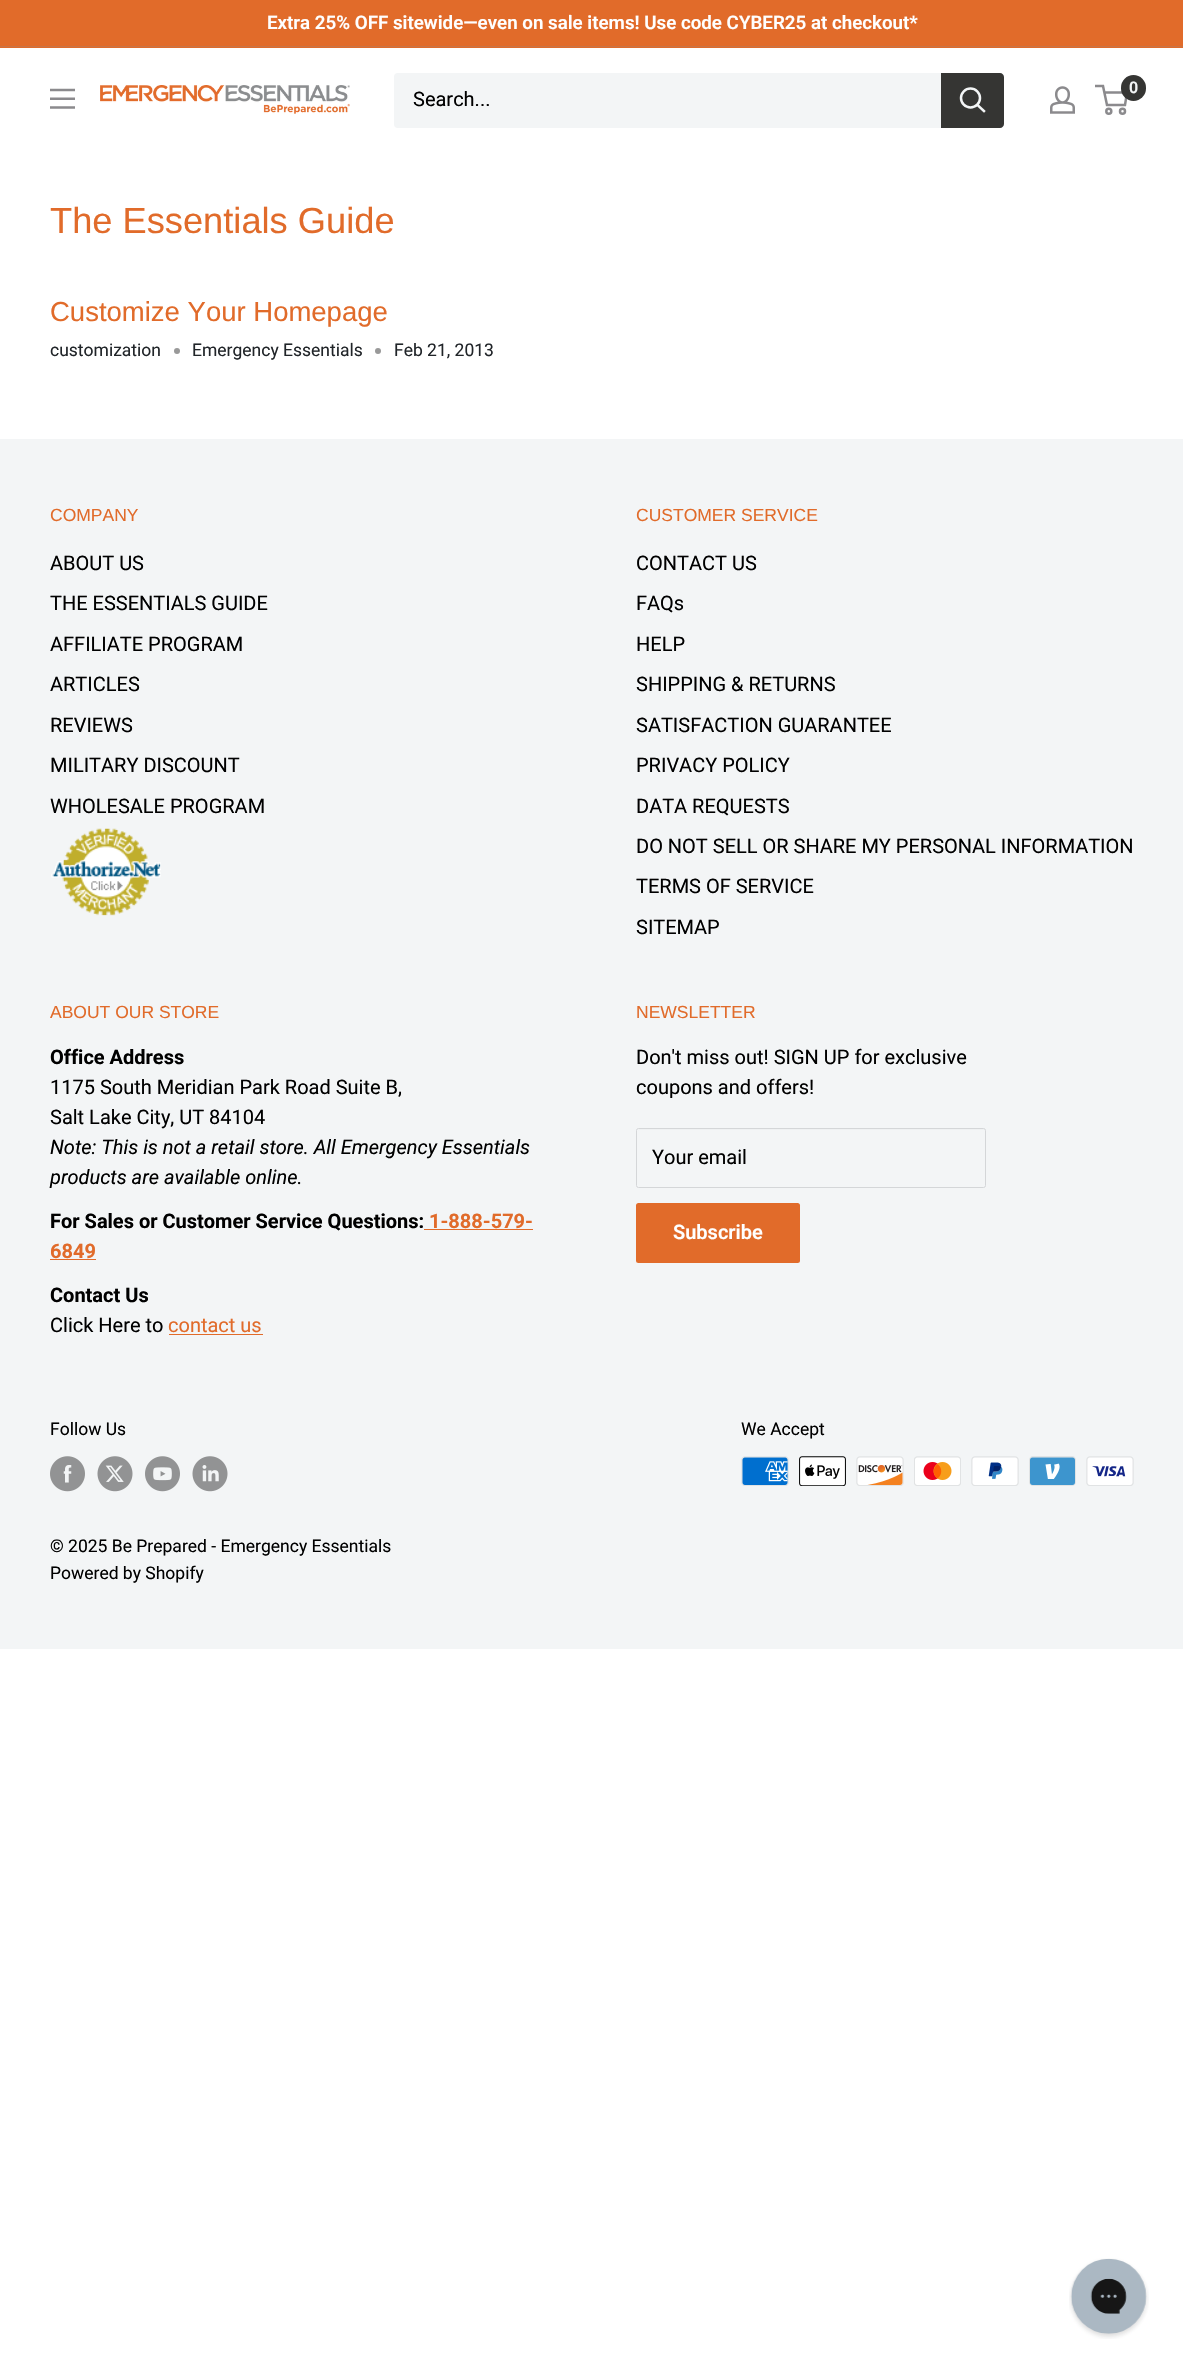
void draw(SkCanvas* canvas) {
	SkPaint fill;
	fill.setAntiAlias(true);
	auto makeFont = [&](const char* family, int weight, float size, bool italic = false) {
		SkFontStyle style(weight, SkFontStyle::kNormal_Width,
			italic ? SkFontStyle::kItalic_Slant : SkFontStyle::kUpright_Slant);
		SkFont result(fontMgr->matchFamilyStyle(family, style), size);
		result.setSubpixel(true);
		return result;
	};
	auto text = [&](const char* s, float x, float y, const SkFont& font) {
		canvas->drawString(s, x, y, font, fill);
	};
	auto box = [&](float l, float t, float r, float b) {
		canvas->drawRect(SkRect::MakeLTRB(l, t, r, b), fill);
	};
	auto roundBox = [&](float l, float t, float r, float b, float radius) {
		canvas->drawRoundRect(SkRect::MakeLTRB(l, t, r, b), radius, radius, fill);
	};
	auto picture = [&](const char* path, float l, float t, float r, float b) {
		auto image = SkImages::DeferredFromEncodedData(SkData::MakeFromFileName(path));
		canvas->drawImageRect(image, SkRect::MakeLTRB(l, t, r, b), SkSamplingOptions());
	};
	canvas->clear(0xFFFFFFFF);
	fill.setColor(0xFFE16B2A);
	box(0, 0, 1183, 48);
	fill.setColor(0xFFC77448);
	box(0, 46, 1183, 47);
	picture("image0.png", 50, 88, 75, 109);
	picture("image1.png", 100, 85, 350, 114);
	fill.setColor(0xFFF3F5F6);
	roundBox(394, 73, 1004, 128, 4);
	fill.setColor(0xFF353533);
	canvas->drawPath(SkPathBuilder().moveTo(941, 73).lineTo(1000, 73).cubicTo(1002, 73, 1004, 75, 1004, 77).lineTo(1004, 124).cubicTo(1004, 126, 1002, 128, 1000, 128).lineTo(941, 128).close().detach(), fill);
	fill.setStyle(SkPaint::kStroke_Style);
	fill.setStrokeWidth(2.5f);
	fill.setStrokeCap(SkPaint::kSquare_Cap);
	fill.setColor(0xFFF3F5F6);
	canvas->drawPath(SkPathBuilder().moveTo(984, 111).lineTo(977.5f, 105).detach(), fill);
	fill.setStrokeCap(SkPaint::kButt_Cap);
	canvas->drawCircle(970.5f, 98, 9.5f, fill);
	picture("image2.png", 1050, 86, 1075, 114);
	fill.setColor(0xFF8B8A8D);
	canvas->drawCircle(1108.8f, 111.2f, 2.5f, fill);
	canvas->drawCircle(1122.5f, 111.2f, 2.5f, fill);
	canvas->drawPath(SkPathBuilder().moveTo(1104, 92.5f).lineTo(1127, 92.5f).lineTo(1125, 105).lineTo(1107, 105).lineTo(1103, 86).lineTo(1095, 86).detach(), fill);
	fill.setStyle(SkPaint::kFill_Style);
	fill.setColor(0xFF353533);
	roundBox(1121, 75, 1146, 101, 12.5f);
	fill.setColor(0xFF999999);
	canvas->drawCircle(177, 351, 3, fill);
	canvas->drawCircle(378, 351, 3, fill);
	fill.setColor(0xFFF3F5F6);
	box(0, 439, 1183, 1649);
	picture("image3.png", 51, 828, 161, 916);
	fill.setColor(0xFFE16B2A);
	box(424, 1229, 533, 1230);
	box(50, 1259, 96, 1260);
	box(169, 1334, 263, 1335);
	fill.setColor(0xFFEFF1F2);
	canvas->drawPath(SkPathBuilder().moveTo(639, 1130).lineTo(984, 1130).lineTo(985, 1131).lineTo(985, 1129).lineTo(639, 1129).lineTo(638, 1130).lineTo(638, 1131).close().detach(), fill);
	fill.setStyle(SkPaint::kStroke_Style);
	fill.setStrokeWidth(1);
	fill.setColor(0xFFD4D6D8);
	canvas->drawRoundRect(SkRect::MakeLTRB(636.5f, 1128.5f, 985.5f, 1187.5f), 2, 2, fill);
	fill.setStyle(SkPaint::kFill_Style);
	fill.setColor(0xFFE16B2A);
	roundBox(636, 1203, 800, 1263, 2.5f);
	picture("image4.png", 50, 1456, 85, 1492);
	picture("image5.png", 97, 1456, 133, 1492);
	picture("image6.png", 145, 1456, 180, 1492);
	picture("image7.png", 192, 1456, 228, 1492);
	picture("image8.png", 741, 1456, 789, 1486);
	picture("image9.png", 799, 1456, 846, 1486);
	picture("image10.png", 856, 1456, 904, 1486);
	picture("image11.png", 914, 1456, 961, 1486);
	picture("image12.png", 971, 1456, 1019, 1486);
	picture("image13.png", 1029, 1456, 1076, 1486);
	picture("image14.png", 1086, 1456, 1134, 1486);
	picture("image15.png", 1069, 2258, 1149, 2339);
	auto font1 = makeFont("Roboto", 600, 18.75f);
	fill.setColor(0xFFFFFFFF);
	text("Extra 25% OFF sitewide—even on sale items! Use code CYBER25 at checkout*", 267, 29, font1);
	auto font2 = makeFont("Roboto", 400, 20);
	fill.setColor(0xFF000000);
	text("Search...", 413, 106, font2);
	auto font3 = makeFont("Roboto", 600, 16);
	fill.setColor(0xFFF3F5F6);
	text("0", 1129, 93, font3);
	auto font4 = makeFont("Arimo", 400, 36.25f);
	fill.setColor(0xFFE16B2A);
	text("The Essentials Guide", 50, 233, font4);
	auto font5 = makeFont("Arimo", 400, 27.5f);
	text("Customize Your Homepage", 50, 321, font5);
	auto font6 = makeFont("Roboto", 400, 17.5f);
	fill.setColor(0xFF212529);
	text("customization", 50, 356, font6);
	text("Emergency Essentials", 192, 356, font6);
	text("Feb 21, 2013", 394, 356, font6);
	auto font7 = makeFont("Arimo", 400, 17.5f);
	fill.setColor(0xFFE16B2A);
	text("COMPANY", 50, 521, font7);
	fill.setColor(0xFF000000);
	text("ABOUT US", 50, 570, font2);
	text("THE ESSENTIALS GUIDE", 50, 610, font2);
	text("AFFILIATE PROGRAM", 50, 651, font2);
	text("ARTICLES", 50, 691, font2);
	text("REVIEWS", 50, 732, font2);
	text("MILITARY DISCOUNT", 50, 772, font2);
	text("WHOLESALE PROGRAM", 50, 813, font2);
	fill.setColor(0xFFE16B2A);
	text("CUSTOMER SERVICE", 636, 521, font7);
	fill.setColor(0xFF000000);
	text("CONTACT US", 636, 570, font2);
	text("FAQs", 636, 610, font2);
	text("HELP", 636, 651, font2);
	text("SHIPPING & RETURNS", 636, 691, font2);
	text("SATISFACTION GUARANTEE", 636, 732, font2);
	text("PRIVACY POLICY", 636, 772, font2);
	text("DATA REQUESTS", 636, 813, font2);
	text("DO NOT SELL OR SHARE MY PERSONAL INFORMATION", 636, 853, font2);
	text("TERMS OF SERVICE", 636, 893, font2);
	text("SITEMAP", 636, 934, font2);
	fill.setColor(0xFFE16B2A);
	text("ABOUT OUR STORE", 50, 1018, font7);
	auto font8 = makeFont("Roboto", 700, 20);
	fill.setColor(0xFF000000);
	text("Office Address", 50, 1064, font8);
	text("1175 South Meridian Park Road Suite B,", 50, 1094, font2);
	text("Salt Lake City, UT 84104", 50, 1124, font2);
	auto font9 = makeFont("Roboto", 400, 20, true);
	text("Note: This is not a retail store. All Emergency Essentials", 50, 1154, font9);
	text("products are available online.", 50, 1184, font9);
	text("For Sales or Customer Service Questions:", 50, 1228, font8);
	fill.setColor(0xFFE16B2A);
	text("1-888-579-", 429, 1228, font8);
	text("6849", 50, 1258, font8);
	fill.setColor(0xFF000000);
	text("Contact Us", 50, 1302, font8);
	text("Click Here to", 50, 1332, font2);
	fill.setColor(0xFFE16B2A);
	text("contact us", 168, 1332, font2);
	text("NEWSLETTER", 636, 1018, font7);
	fill.setColor(0xFF000000);
	text("Don't miss out! SIGN UP for exclusive", 636, 1064, font2);
	text("coupons and offers!", 636, 1094, font2);
	text("Your email", 652, 1164, font2);
	auto font10 = makeFont("Roboto", 600, 20);
	fill.setColor(0xFFFFFFFF);
	text("Subscribe", 673, 1239, font10);
	fill.setColor(0xFF000000);
	text("Follow Us", 50, 1435, font6);
	text("We Accept", 741, 1435, font6);
	text("© 2025 Be Prepared - Emergency Essentials", 50, 1552, font6);
	text("Powered by Shopify", 50, 1579, font6);
}
